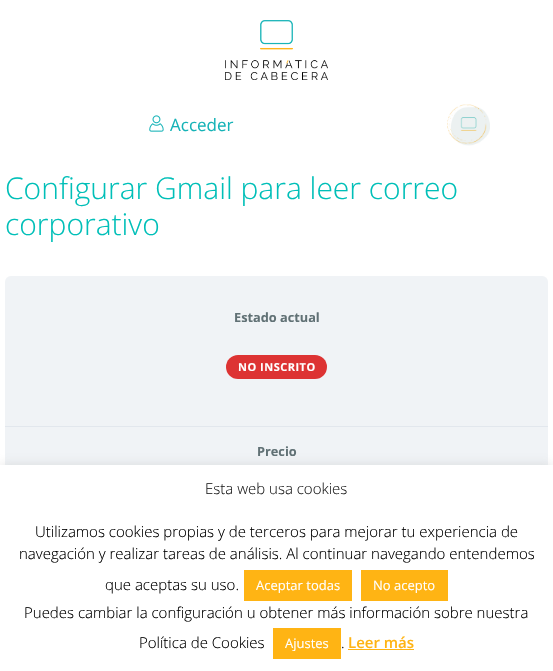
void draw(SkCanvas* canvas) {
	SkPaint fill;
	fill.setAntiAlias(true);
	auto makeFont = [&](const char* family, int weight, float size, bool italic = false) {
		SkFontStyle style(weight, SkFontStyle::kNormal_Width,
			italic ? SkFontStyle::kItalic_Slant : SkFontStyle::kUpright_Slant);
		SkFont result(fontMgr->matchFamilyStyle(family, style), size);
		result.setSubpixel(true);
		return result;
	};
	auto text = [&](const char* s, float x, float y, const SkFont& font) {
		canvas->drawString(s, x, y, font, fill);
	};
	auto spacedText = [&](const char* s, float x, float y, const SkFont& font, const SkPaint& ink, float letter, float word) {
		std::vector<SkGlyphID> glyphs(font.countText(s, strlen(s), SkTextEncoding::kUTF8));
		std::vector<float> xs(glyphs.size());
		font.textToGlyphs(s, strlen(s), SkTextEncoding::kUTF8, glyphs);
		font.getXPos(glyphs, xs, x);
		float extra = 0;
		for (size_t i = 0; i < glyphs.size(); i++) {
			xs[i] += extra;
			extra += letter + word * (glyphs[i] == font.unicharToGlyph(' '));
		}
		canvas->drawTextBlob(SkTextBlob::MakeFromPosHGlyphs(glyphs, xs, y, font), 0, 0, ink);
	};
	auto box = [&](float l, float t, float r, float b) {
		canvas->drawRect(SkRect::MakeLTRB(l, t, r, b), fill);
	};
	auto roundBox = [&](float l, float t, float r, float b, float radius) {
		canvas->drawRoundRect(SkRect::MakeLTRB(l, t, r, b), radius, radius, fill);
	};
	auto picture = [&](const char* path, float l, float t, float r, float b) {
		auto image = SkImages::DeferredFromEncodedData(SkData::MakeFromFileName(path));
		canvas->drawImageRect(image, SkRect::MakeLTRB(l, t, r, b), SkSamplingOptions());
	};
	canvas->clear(0xFFFFFFFF);
	picture("image0.png", 225, 20, 328, 80);
	picture("image1.png", 149, 115, 164, 132);
	picture("image2.png", 447, 104, 490, 146);
	fill.setColor(0xFFF0F3F6);
	roundBox(5, 276, 548, 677, 6);
	fill.setColor(0xFFE2E7ED);
	box(5, 426, 548, 427);
	fill.setColor(0xFFDD3333);
	roundBox(226, 355, 327, 379, 12);
	fill.setColor(0x4DACABAB);
	fill.setMaskFilter(SkMaskFilter::MakeBlur(kNormal_SkBlurStyle, 5));
	canvas->drawRect(SkRect::MakeLTRB(0, 464, 553, 670), fill);
	fill.setMaskFilter(nullptr);
	fill.setColor(0xFFFFFFFF);
	box(0, 465, 553, 671);
	fill.setColor(0xFFFFB414);
	box(244, 570, 352, 601);
	box(361, 570, 448, 601);
	box(273, 628, 341, 659);
	box(348, 649, 414, 650);
	auto font1 = makeFont("Open Sans", 400, 17);
	fill.setColor(0xFF16B3B7);
	text("Acceder", 170, 131, font1);
	auto font2 = makeFont("Open Sans", 300, 30);
	fill.setColor(0xFF00BFB8);
	text("Configurar Gmail para leer correo", 5, 199, font2);
	text("corporativo", 5, 235, font2);
	auto font3 = makeFont("Open Sans", 700, 12.75f);
	fill.setColor(0xFF617175);
	text("Estado actual", 234, 322, font3);
	auto font4 = makeFont("Open Sans", 700, 11);
	fill.setColor(0xFFFFFFFF);
	spacedText("NO INSCRITO", 238, 371, font4, fill, 0.5f, 0);
	fill.setColor(0xFF617175);
	text("Precio", 257, 456, font3);
	auto font5 = makeFont("Open Sans", 300, 15);
	fill.setColor(0xFF222222);
	text("Esta web usa cookies", 205, 494, font5);
	fill.setColor(0xFF000000);
	text("Utilizamos cookies propias y de terceros para mejorar tu experiencia de", 35, 537, font5);
	text("navegación y realizar tareas de análisis. Al continuar navegando entendemos", 19, 559, font5);
	text("que aceptas su uso.", 105, 590, font5);
	auto font6 = makeFont("Open Sans", 400, 13);
	fill.setColor(0xFFFFFFFF);
	text("Aceptar todas", 256, 590, font6);
	text("No acepto", 373, 590, font6);
	fill.setColor(0xFF000000);
	text("Puedes cambiar la configuración u obtener más información sobre nuestra", 24, 618, font5);
	text("Política de Cookies", 139, 648, font5);
	fill.setColor(0xFFFFFFFF);
	text("Ajustes", 285, 648, font6);
	fill.setColor(0xFF000000);
	text(".", 341, 648, font5);
	auto font7 = makeFont("Open Sans", 600, 15);
	fill.setColor(0xFFFFB414);
	text("Leer más", 348, 648, font7);
}
